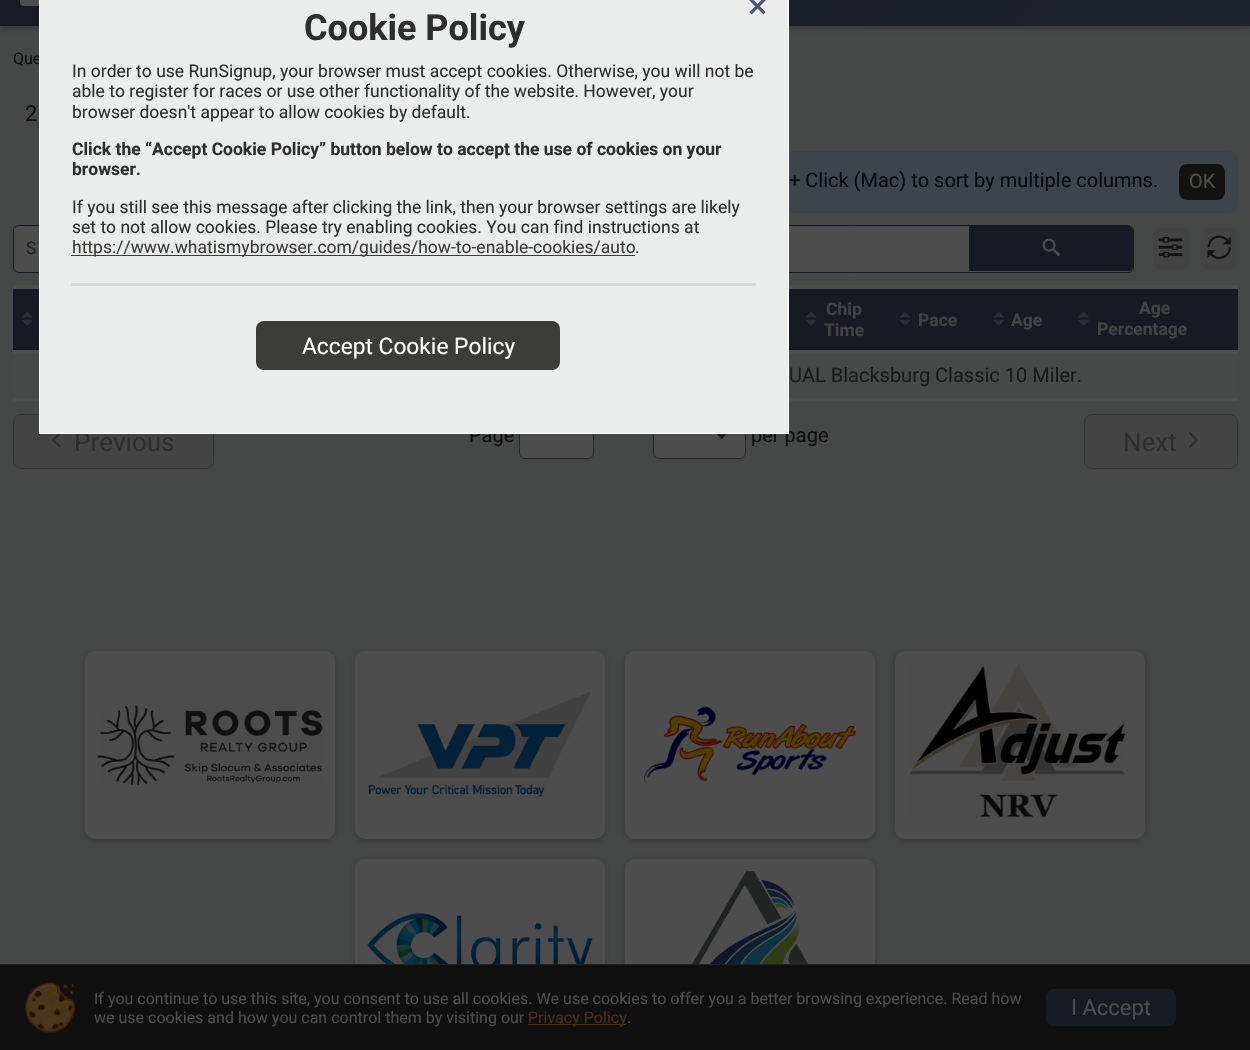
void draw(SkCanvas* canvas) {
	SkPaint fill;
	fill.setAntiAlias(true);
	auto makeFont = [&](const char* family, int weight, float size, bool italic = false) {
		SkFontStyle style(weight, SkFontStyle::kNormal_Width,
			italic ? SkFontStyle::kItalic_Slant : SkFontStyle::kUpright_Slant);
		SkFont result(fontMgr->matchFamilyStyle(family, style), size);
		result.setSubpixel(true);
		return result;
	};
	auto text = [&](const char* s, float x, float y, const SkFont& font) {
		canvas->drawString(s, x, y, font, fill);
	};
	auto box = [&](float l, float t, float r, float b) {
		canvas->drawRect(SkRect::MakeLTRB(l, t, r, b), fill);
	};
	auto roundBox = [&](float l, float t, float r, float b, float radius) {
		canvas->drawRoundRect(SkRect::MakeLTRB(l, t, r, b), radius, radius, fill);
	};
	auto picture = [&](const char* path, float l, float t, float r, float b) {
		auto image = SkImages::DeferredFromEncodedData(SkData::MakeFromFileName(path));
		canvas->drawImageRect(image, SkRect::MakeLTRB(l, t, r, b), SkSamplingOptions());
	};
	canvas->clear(0xFF464747);
	fill.setColor(0x2E000000);
	fill.setMaskFilter(SkMaskFilter::MakeBlur(kNormal_SkBlurStyle, 2.5f));
	canvas->drawRect(SkRect::MakeLTRB(0, -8, 1250, 29), fill);
	fill.setMaskFilter(nullptr);
	{
		const SkColor colors[] = {0xFF1F232E, 0xFF171A22};
		const float stops[] = {0, 1};
		const SkPoint ends[] = {{973, 304}, {277, -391}};
		fill.setShader(SkGradientShader::MakeLinear(ends, colors, stops, 2, SkTileMode::kClamp));
		fill.setAlpha(255);
	}
	box(0, 0, 1250, 26);
	fill.setShader(nullptr);
	fill.setColor(0xFF4D4D4D);
	roundBox(20, -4, 120, 6, 4);
	fill.setColor(0xFF3D444A);
	roundBox(465, 151, 1238, 213, 8);
	fill.setColor(0xFF121211);
	roundBox(1179, 164, 1225, 200, 8);
	fill.setColor(0xFF4D4D4D);
	canvas->drawRoundRect(SkRect::MakeLTRB(13.5f, 225.5f, 1133.5f, 272.5f), 5.5f, 5.5f, fill);
	fill.setStyle(SkPaint::kStroke_Style);
	fill.setStrokeWidth(1);
	fill.setColor(0xFF171A22);
	canvas->drawRoundRect(SkRect::MakeLTRB(13.5f, 225.5f, 1133.5f, 272.5f), 5.5f, 5.5f, fill);
	canvas->save();
	canvas->clipPath(SkPathBuilder().moveTo(19, 226).lineTo(1128, 226).cubicTo(1131, 226, 1133, 228, 1133, 231).lineTo(1133, 266).cubicTo(1133, 269, 1131, 271, 1128, 271).lineTo(19, 271).cubicTo(16, 271, 14, 269, 14, 266).lineTo(14, 231).cubicTo(14, 228, 16, 226, 19, 226).close().detach(), true);
	fill.setStyle(SkPaint::kFill_Style);
	fill.setColor(0xFF4D4D4D);
	box(14, 228, 969, 270);
	canvas->restore();
	fill.setColor(0xFF171A22);
	canvas->drawPath(SkPathBuilder().moveTo(969, 226).lineTo(1128, 226).cubicTo(1131, 226, 1133, 228, 1133, 231).lineTo(1133, 266).cubicTo(1133, 269, 1131, 271, 1128, 271).lineTo(969, 271).close().detach(), fill);
	picture("image1.png", 1042, 238, 1060, 257);
	fill.setColor(0xFF444444);
	roundBox(1153, 228, 1189, 270, 8);
	picture("image2.png", 1158, 237, 1183, 258);
	roundBox(1201, 228, 1238, 270, 8);
	picture("image3.png", 1207, 235, 1231, 259);
	fill.setColor(0xFF4D4D4D);
	box(13, 285, 1238, 401);
	fill.setColor(0xFF171A22);
	box(13, 289, 1238, 350);
	picture("image4.png", 22, 311, 33, 326);
	picture("image5.png", 806, 311, 817, 326);
	picture("image6.png", 900, 312, 910, 326);
	picture("image7.png", 993, 311, 1004, 326);
	picture("image7.png", 1078, 311, 1089, 326);
	fill.setColor(0xFF474848);
	box(13, 354, 1238, 398);
	fill.setColor(0xFF444444);
	canvas->drawRoundRect(SkRect::MakeLTRB(13.5f, 414.5f, 213.5f, 468.5f), 7.5f, 7.5f, fill);
	fill.setStyle(SkPaint::kStroke_Style);
	fill.setColor(0xFF363636);
	canvas->drawRoundRect(SkRect::MakeLTRB(13.5f, 414.5f, 213.5f, 468.5f), 7.5f, 7.5f, fill);
	picture("image8.png", 52, 434, 62, 448);
	fill.setStyle(SkPaint::kFill_Style);
	fill.setColor(0xFF4D4D4D);
	canvas->drawRoundRect(SkRect::MakeLTRB(519.5f, 414.5f, 593.5f, 458.5f), 5.5f, 5.5f, fill);
	fill.setStyle(SkPaint::kStroke_Style);
	fill.setColor(0xFF2A2A2A);
	canvas->drawRoundRect(SkRect::MakeLTRB(519.5f, 414.5f, 593.5f, 458.5f), 5.5f, 5.5f, fill);
	fill.setStyle(SkPaint::kFill_Style);
	fill.setColor(0xFF4D4D4D);
	roundBox(653, 414, 746, 459, 6);
	picture("image9.png", 716, 434, 726, 439);
	fill.setStyle(SkPaint::kStroke_Style);
	fill.setColor(0xFF2A2A2A);
	canvas->drawRoundRect(SkRect::MakeLTRB(653.5f, 414.5f, 745.5f, 458.5f), 5.5f, 5.5f, fill);
	fill.setStyle(SkPaint::kFill_Style);
	fill.setColor(0xFF444444);
	canvas->drawRoundRect(SkRect::MakeLTRB(1084.5f, 414.5f, 1237.5f, 468.5f), 7.5f, 7.5f, fill);
	fill.setStyle(SkPaint::kStroke_Style);
	fill.setColor(0xFF363636);
	canvas->drawRoundRect(SkRect::MakeLTRB(1084.5f, 414.5f, 1237.5f, 468.5f), 7.5f, 7.5f, fill);
	picture("image10.png", 1189, 432, 1199, 448);
	fill.setStyle(SkPaint::kFill_Style);
	fill.setColor(0x33000000);
	fill.setMaskFilter(SkMaskFilter::MakeBlur(kNormal_SkBlurStyle, 3));
	canvas->drawRoundRect(SkRect::MakeLTRB(85, 653, 335, 840), 10, 10, fill);
	fill.setMaskFilter(nullptr);
	fill.setColor(0xFF4D4D4D);
	roundBox(85, 651, 335, 839, 10);
	picture("image11.png", 97, 704, 323, 785);
	fill.setColor(0x33000000);
	fill.setMaskFilter(SkMaskFilter::MakeBlur(kNormal_SkBlurStyle, 3));
	canvas->drawRoundRect(SkRect::MakeLTRB(355, 653, 605, 840), 10, 10, fill);
	fill.setMaskFilter(nullptr);
	fill.setColor(0xFF4D4D4D);
	roundBox(355, 651, 605, 839, 10);
	picture("image12.png", 368, 691, 591, 798);
	fill.setColor(0x33000000);
	fill.setMaskFilter(SkMaskFilter::MakeBlur(kNormal_SkBlurStyle, 3));
	canvas->drawRoundRect(SkRect::MakeLTRB(625, 653, 875, 840), 10, 10, fill);
	fill.setMaskFilter(nullptr);
	fill.setColor(0xFF4D4D4D);
	roundBox(625, 651, 875, 839, 10);
	picture("image13.png", 644, 706, 857, 784);
	fill.setColor(0x33000000);
	fill.setMaskFilter(SkMaskFilter::MakeBlur(kNormal_SkBlurStyle, 3));
	canvas->drawRoundRect(SkRect::MakeLTRB(895, 653, 1145, 840), 10, 10, fill);
	fill.setMaskFilter(nullptr);
	fill.setColor(0xFF4D4D4D);
	roundBox(895, 651, 1145, 839, 10);
	picture("image14.png", 910, 664, 1127, 819);
	fill.setColor(0x33000000);
	fill.setMaskFilter(SkMaskFilter::MakeBlur(kNormal_SkBlurStyle, 3));
	canvas->drawRoundRect(SkRect::MakeLTRB(355, 860, 605, 1048), 10, 10, fill);
	fill.setMaskFilter(nullptr);
	fill.setColor(0xFF4D4D4D);
	roundBox(355, 859, 605, 1046, 10);
	picture("image15.png", 367, 913, 593, 964);
	fill.setColor(0x33000000);
	fill.setMaskFilter(SkMaskFilter::MakeBlur(kNormal_SkBlurStyle, 3));
	canvas->drawRoundRect(SkRect::MakeLTRB(625, 860, 875, 1048), 10, 10, fill);
	fill.setMaskFilter(nullptr);
	fill.setColor(0xFF4D4D4D);
	roundBox(625, 859, 875, 1046, 10);
	picture("image16.png", 692, 871, 808, 964);
	fill.setColor(0xFF0F0F0F);
	box(0, 965, 1250, 1050);
	fill.setColor(0xFF1F1F1F);
	box(0, 964, 1250, 965);
	picture("image17.png", 25, 982, 75, 1033);
	fill.setColor(0xFF4C2E0B);
	box(528, 1024, 626, 1025);
	fill.setColor(0xFF171A22);
	roundBox(1046, 989, 1176, 1026, 8);
	auto font1 = makeFont("Roboto", 400, 16);
	fill.setColor(0xFF0F0F0F);
	text("Que", 13, 64, font1);
	auto font2 = makeFont("Roboto", 400, 22);
	text("2", 25, 121, font2);
	auto font3 = makeFont("Roboto", 400, 20);
	fill.setColor(0xFF030A11);
	text("+ Click (Mac) to sort by multiple columns.", 789, 187, font3);
	fill.setColor(0xFF4D4D4D);
	text("OK", 1189, 188, font3);
	auto font4 = makeFont("Roboto", 400, 17.5f);
	fill.setColor(0xFF232323);
	text("S", 26, 254, font4);
	auto font5 = makeFont("Roboto", 700, 17.5f);
	fill.setColor(0xFF424244);
	text("Chip", 826, 315, font5);
	text("Time", 824, 336, font5);
	text("Pace", 918, 326, font5);
	text("Age", 1011, 326, font5);
	text("Age", 1139, 314, font5);
	text("Percentage", 1097, 335, font5);
	fill.setColor(0xFF1A1A1A);
	text("UAL Blacksburg Classic 10 Miler.", 789, 382, font3);
	auto font6 = makeFont("Roboto", 400, 26);
	fill.setColor(0xFF2E2E2E);
	text("Previous", 74, 451, font6);
	fill.setColor(0xFF0F0F0F);
	text("Page", 469, 442, font3);
	text("per page", 751, 442, font3);
	fill.setStyle(SkPaint::kStroke_Style);
	fill.setColor(0xFFFFFFFF);
	canvas->drawRect(SkRect::MakeLTRB(39.5f, -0.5f, 788.5f, 433.5f), fill);
	fill.setStyle(SkPaint::kFill_Style);
	fill.setColor(0xFFEAEDEB);
	box(40, 0, 788, 433);
	picture("image0.png", 749, 0, 766, 15);
	fill.setColor(0xFFD3DBDF);
	box(71, 283, 756, 286);
	fill.setColor(0xFF3C3D3A);
	roundBox(256, 321, 560, 370, 8);
	auto font7 = makeFont("Roboto", 400, 22.75f);
	fill.setColor(0xFFFFFFFF);
	text("Accept Cookie Policy", 302, 354, font7);
	fill.setColor(0xFF2E2E2E);
	text(".", 635, 253, font4);
	fill.setColor(0xFF3C3D3A);
	box(71, 255, 635, 256);
	text("https://www.whatismybrowser.com/guides/how-to-enable-cookies/auto", 72, 253, font4);
	fill.setColor(0xFF2E2E2E);
	text("set to not allow cookies. Please try enabling cookies. You can find instructions at", 72, 233, font4);
	text("If you still see this message after clicking the link, then your browser settings are likely", 72, 213, font4);
	text("browser.", 72, 175, font5);
	text("Click the “Accept Cookie Policy” button below to accept the use of cookies on your", 72, 155, font5);
	text("browser doesn't appear to allow cookies by default.", 72, 118, font4);
	text("able to register for races or use other functionality of the website. However, your", 72, 97, font4);
	text("In order to use RunSignup, your browser must accept cookies. Otherwise, you will not be", 72, 77, font4);
	auto font8 = makeFont("Roboto", 700, 36);
	text("Cookie Policy", 304, 40, font8);
	text("Next", 1123, 451, font6);
	fill.setColor(0xFF4D4D4D);
	text("If you continue to use this site, you consent to use all cookies. We use cookies to offer you a better browsing experience. Read how", 94, 1004, font1);
	text("we use cookies and how you can control them by visiting our", 94, 1023, font1);
	fill.setColor(0xFF4C2E0B);
	text("Privacy Policy", 528, 1023, font1);
	fill.setColor(0xFF4D4D4D);
	text(".", 627, 1023, font1);
	text("I Accept", 1071, 1015, font2);
}
